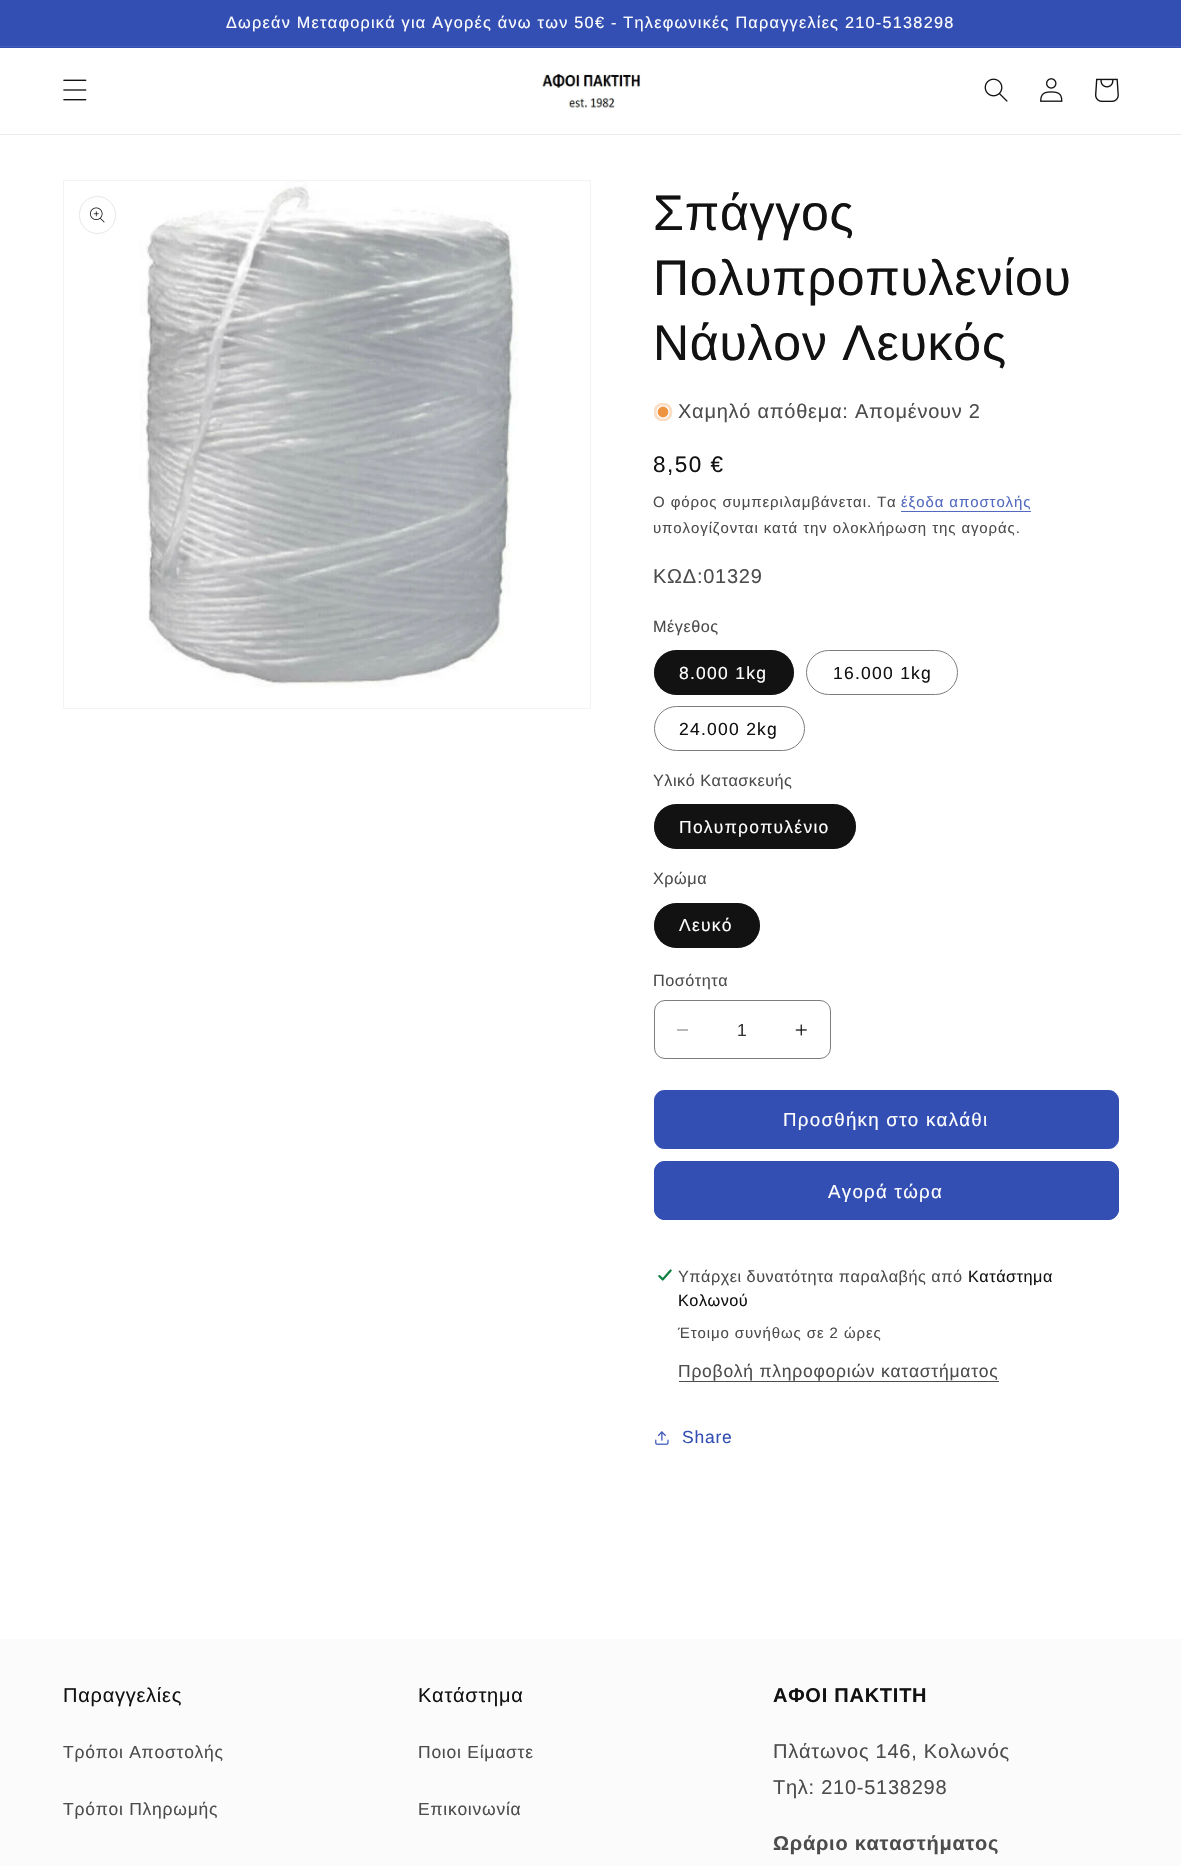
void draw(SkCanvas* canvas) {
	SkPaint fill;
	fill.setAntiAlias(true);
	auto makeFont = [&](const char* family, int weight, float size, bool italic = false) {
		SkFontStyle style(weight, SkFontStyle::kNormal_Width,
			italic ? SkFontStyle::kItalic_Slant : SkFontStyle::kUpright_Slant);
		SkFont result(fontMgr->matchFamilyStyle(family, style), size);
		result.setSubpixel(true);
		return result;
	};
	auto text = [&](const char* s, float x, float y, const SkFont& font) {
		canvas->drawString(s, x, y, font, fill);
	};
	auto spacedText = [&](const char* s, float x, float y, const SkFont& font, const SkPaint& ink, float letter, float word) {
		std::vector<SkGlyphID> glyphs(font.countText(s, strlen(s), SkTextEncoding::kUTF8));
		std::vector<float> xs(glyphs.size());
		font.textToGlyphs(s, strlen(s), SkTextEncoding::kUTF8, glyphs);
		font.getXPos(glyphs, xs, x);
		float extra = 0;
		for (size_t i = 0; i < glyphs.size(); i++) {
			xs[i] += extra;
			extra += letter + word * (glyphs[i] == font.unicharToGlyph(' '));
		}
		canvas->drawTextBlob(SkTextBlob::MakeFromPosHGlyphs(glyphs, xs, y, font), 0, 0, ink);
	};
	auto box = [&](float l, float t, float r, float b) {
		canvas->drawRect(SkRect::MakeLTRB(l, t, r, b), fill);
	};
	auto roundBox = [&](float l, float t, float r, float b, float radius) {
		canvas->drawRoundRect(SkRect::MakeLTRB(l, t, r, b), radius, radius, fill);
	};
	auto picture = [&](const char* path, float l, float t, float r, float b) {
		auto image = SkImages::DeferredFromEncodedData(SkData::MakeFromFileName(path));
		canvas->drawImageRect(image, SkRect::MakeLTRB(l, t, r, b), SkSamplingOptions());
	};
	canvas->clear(0xFFFFFFFF);
	fill.setColor(0xFF334FB4);
	box(0, 0, 1181, 48);
	fill.setColor(0xFF435DBA);
	box(0, 46, 1181, 47);
	fill.setColor(0xFFECECEC);
	box(0, 134, 1181, 135);
	picture("image0.png", 63, 79, 87, 101);
	picture("image1.png", 542, 73, 641, 108);
	picture("image2.png", 984, 78, 1008, 102);
	picture("image3.png", 1040, 78, 1063, 102);
	picture("image4.png", 1095, 78, 1119, 102);
	fill.setStyle(SkPaint::kStroke_Style);
	fill.setStrokeWidth(1);
	fill.setColor(0xFFF3F3F3);
	canvas->drawRect(SkRect::MakeLTRB(63.5f, 180.5f, 590.5f, 708.5f), fill);
	fill.setColor(0xFFE7E7E7);
	canvas->drawRoundRect(SkRect::MakeLTRB(79.5f, 196.5f, 115.5f, 233.5f), 18, 18, fill);
	picture("image5.png", 90, 207, 105, 223);
	picture("image6.png", 139, 181, 519, 688);
	canvas->save();
	canvas->clipRect(SkRect::MakeLTRB(654, 403, 673, 421));
	fill.setStyle(SkPaint::kFill_Style);
	fill.setColor(0xFFFADFC6);
	canvas->drawCircle(663, 412, 9.5f, fill);
	canvas->restore();
	fill.setColor(0xFFEE9441);
	canvas->drawCircle(663, 412, 6, fill);
	fill.setStyle(SkPaint::kStroke_Style);
	fill.setStrokeWidth(1.2f);
	fill.setColor(0xFFFFFFFF);
	canvas->drawCircle(663, 412, 6, fill);
	fill.setStyle(SkPaint::kFill_Style);
	fill.setColor(0xFF5269BF);
	box(901, 511, 1031, 512);
	fill.setColor(0xFF121212);
	roundBox(654, 650, 794, 695, 22.5f);
	fill.setStyle(SkPaint::kStroke_Style);
	fill.setStrokeWidth(1);
	fill.setColor(0x8C121212);
	canvas->drawRoundRect(SkRect::MakeLTRB(654.5f, 650.5f, 793.5f, 694.5f), 22, 22, fill);
	fill.setColor(0xFF7D7D7D);
	canvas->drawRoundRect(SkRect::MakeLTRB(806.5f, 650.5f, 957.5f, 694.5f), 22, 22, fill);
	canvas->drawRoundRect(SkRect::MakeLTRB(654.5f, 706.5f, 804.5f, 750.5f), 22, 22, fill);
	fill.setStyle(SkPaint::kFill_Style);
	fill.setColor(0xFF121212);
	roundBox(654, 804, 856, 849, 22.5f);
	fill.setStyle(SkPaint::kStroke_Style);
	fill.setColor(0x8C121212);
	canvas->drawRoundRect(SkRect::MakeLTRB(654.5f, 804.5f, 855.5f, 848.5f), 22, 22, fill);
	fill.setStyle(SkPaint::kFill_Style);
	fill.setColor(0xFF121212);
	roundBox(654, 903, 760, 948, 22.5f);
	fill.setStyle(SkPaint::kStroke_Style);
	fill.setColor(0x8C121212);
	canvas->drawRoundRect(SkRect::MakeLTRB(654.5f, 903.5f, 759.5f, 947.5f), 22, 22, fill);
	picture("image7.png", 677, 1029, 688, 1031);
	picture("image8.png", 795, 1024, 807, 1036);
	fill.setColor(0xFF7D7D7D);
	canvas->drawRoundRect(SkRect::MakeLTRB(654.5f, 1000.5f, 830.5f, 1058.5f), 10.5f, 10.5f, fill);
	fill.setStyle(SkPaint::kFill_Style);
	fill.setColor(0xFF334FB4);
	roundBox(654, 1090, 1119, 1149, 11);
	fill.setStyle(SkPaint::kStroke_Style);
	fill.setColor(0xFFFFFFFF);
	canvas->drawRoundRect(SkRect::MakeLTRB(654.5f, 1090.5f, 1118.5f, 1148.5f), 10.5f, 10.5f, fill);
	fill.setStrokeWidth(2);
	fill.setColor(0xFF334FB4);
	canvas->drawRoundRect(SkRect::MakeLTRB(655, 1091, 1118, 1148), 10, 10, fill);
	fill.setStyle(SkPaint::kFill_Style);
	roundBox(654, 1161, 1119, 1220, 11);
	fill.setStyle(SkPaint::kStroke_Style);
	fill.setStrokeWidth(1);
	canvas->drawRoundRect(SkRect::MakeLTRB(654.5f, 1161.5f, 1118.5f, 1219.5f), 10.5f, 10.5f, fill);
	picture("image9.png", 657, 1268, 673, 1282);
	fill.setStyle(SkPaint::kFill_Style);
	fill.setColor(0xFF4D4D4D);
	box(679, 1381, 999, 1382);
	picture("image10.png", 655, 1431, 669, 1445);
	fill.setColor(0xFFFBFBFB);
	box(0, 1639, 1181, 1866);
	auto font1 = makeFont("Liberation Sans", 400, 16.25f);
	fill.setColor(0xFFFFFFFF);
	spacedText("Δωρεάν Μεταφορικά για Αγορές άνω των 50€ - Τηλεφωνικές Παραγγελίες 210-5138298", 226, 28, font1, fill, 1.25f, 0);
	auto font2 = makeFont("Liberation Sans", 400, 50);
	fill.setColor(0xFF121212);
	spacedText("Σπάγγος", 653, 230, font2, fill, 0.75f, 0);
	spacedText("Πολυπροπυλενίου", 653, 295, font2, fill, 0.75f, 0);
	spacedText("Νάυλον Λευκός", 653, 360, font2, fill, 0.75f, 0);
	auto font3 = makeFont("Liberation Sans", 400, 20);
	fill.setColor(0xFF4C4C4C);
	spacedText("Χαμηλό απόθεμα: Απομένουν 2", 678, 418, font3, fill, 0.75f, 0);
	auto font4 = makeFont("Liberation Sans", 400, 22.5f);
	fill.setColor(0xFF121212);
	spacedText("8,50 €", 653, 472, font4, fill, 1.5f, 0);
	auto font5 = makeFont("Liberation Sans", 400, 15);
	fill.setColor(0xFF4C4C4C);
	spacedText("Ο φόρος συμπεριλαμβάνεται. Τα", 653, 507, font5, fill, 0.9f, 0);
	fill.setColor(0xFF5269BF);
	spacedText("έξοδα αποστολής", 901, 507, font5, fill, 0.9f, 0);
	fill.setColor(0xFF4C4C4C);
	spacedText("υπολογίζονται κατά την ολοκλήρωση της αγοράς.", 653, 533, font5, fill, 0.9f, 0);
	spacedText("ΚΩΔ:01329", 653, 583, font3, fill, 0.75f, 0);
	spacedText("Μέγεθος", 653, 632, font1, fill, 0.5f, 0);
	auto font6 = makeFont("Liberation Sans", 400, 17.5f);
	fill.setColor(0xFFFFFFFF);
	spacedText("8.000 1kg", 679, 679, font6, fill, 1.25f, 0);
	fill.setColor(0xFF121212);
	spacedText("16.000 1kg", 833, 679, font6, fill, 1.25f, 0);
	spacedText("24.000 2kg", 679, 735, font6, fill, 1.25f, 0);
	fill.setColor(0xFF4C4C4C);
	spacedText("Υλικό Κατασκευής", 653, 786, font1, fill, 0.5f, 0);
	fill.setColor(0xFFFFFFFF);
	spacedText("Πολυπροπυλένιο", 679, 833, font6, fill, 1.25f, 0);
	fill.setColor(0xFF4C4C4C);
	spacedText("Χρώμα", 653, 884, font1, fill, 0.5f, 0);
	fill.setColor(0xFFFFFFFF);
	spacedText("Λευκό", 679, 931, font6, fill, 1.25f, 0);
	fill.setColor(0xFF4C4C4C);
	spacedText("Ποσότητα", 653, 986, font1, fill, 0.5f, 0);
	fill.setColor(0xFF363636);
	text("1", 737, 1036, font6);
	auto font7 = makeFont("Liberation Sans", 400, 18.75f);
	fill.setColor(0xFFFFFFFF);
	spacedText("Προσθήκη στο καλάθι", 783, 1126, font7, fill, 1.25f, 0);
	spacedText("Αγορά τώρα", 828, 1198, font7, fill, 1.25f, 0);
	fill.setColor(0xFF4C4C4C);
	spacedText("Υπάρχει δυνατότητα παραλαβής από", 678, 1282, font1, fill, 0.5f, 0);
	fill.setColor(0xFF121212);
	spacedText("Κατάστημα", 968, 1282, font1, fill, 0.5f, 0);
	spacedText("Κολωνού", 678, 1306, font1, fill, 0.5f, 0);
	fill.setColor(0xFF4C4C4C);
	spacedText("Έτοιμο συνήθως σε 2 ώρες", 678, 1338, font5, fill, 0.9f, 0);
	spacedText("Προβολή πληροφοριών καταστήματος", 678, 1377, font6, fill, 0.75f, 0);
	fill.setColor(0xFF334FB4);
	spacedText("Share", 682, 1443, font6, fill, 0.75f, 0);
	fill.setColor(0xFF121212);
	spacedText("Παραγγελίες", 63, 1702, font3, fill, 0.75f, 0);
	fill.setColor(0xFF4C4C4C);
	spacedText("Τρόποι Αποστολής", 63, 1758, font6, fill, 0.75f, 0);
	spacedText("Τρόποι Πληρωμής", 63, 1815, font6, fill, 0.75f, 0);
	fill.setColor(0xFF121212);
	spacedText("Κατάστημα", 418, 1702, font3, fill, 0.75f, 0);
	fill.setColor(0xFF4C4C4C);
	spacedText("Ποιοι Eίμαστε", 418, 1758, font6, fill, 0.75f, 0);
	spacedText("Επικοινωνία", 418, 1815, font6, fill, 0.75f, 0);
	auto font8 = makeFont("Liberation Sans", 700, 20);
	fill.setColor(0xFF121212);
	spacedText("ΑΦΟΙ ΠΑΚΤΙΤΗ", 773, 1702, font8, fill, 0.75f, 0);
	fill.setColor(0xFF4C4C4C);
	spacedText("Πλάτωνος 146, Κολωνός", 773, 1758, font3, fill, 0.75f, 0);
	spacedText("Τηλ: 210-5138298", 773, 1794, font3, fill, 0.75f, 0);
	spacedText("Ωράριο καταστήματος", 773, 1850, font8, fill, 0.75f, 0);
}
